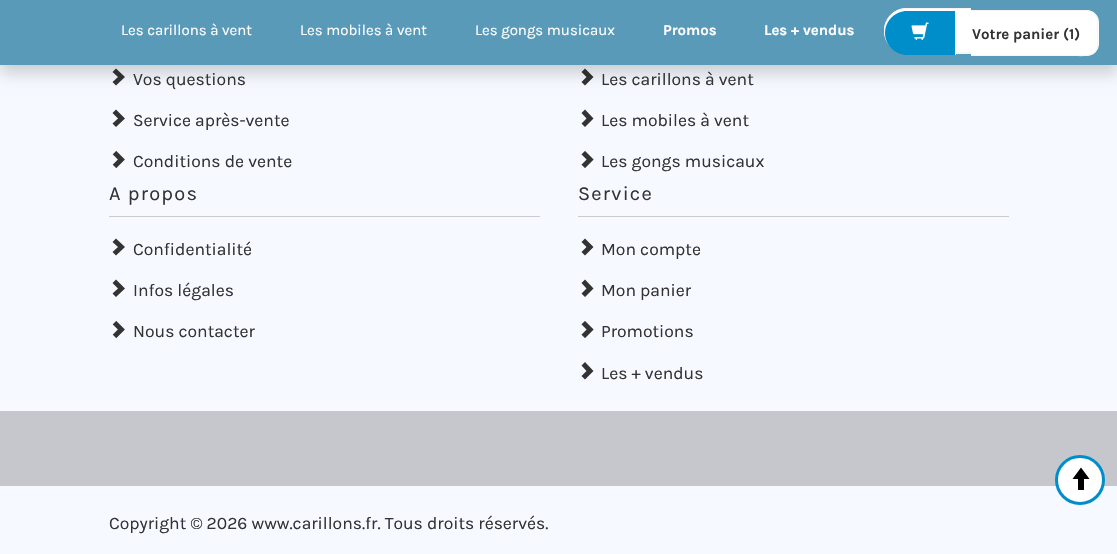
void draw(SkCanvas* canvas) {
	SkPaint fill;
	fill.setAntiAlias(true);
	auto makeFont = [&](const char* family, int weight, float size, bool italic = false) {
		SkFontStyle style(weight, SkFontStyle::kNormal_Width,
			italic ? SkFontStyle::kItalic_Slant : SkFontStyle::kUpright_Slant);
		SkFont result(fontMgr->matchFamilyStyle(family, style), size);
		result.setSubpixel(true);
		return result;
	};
	auto text = [&](const char* s, float x, float y, const SkFont& font) {
		canvas->drawString(s, x, y, font, fill);
	};
	auto spacedText = [&](const char* s, float x, float y, const SkFont& font, const SkPaint& ink, float letter, float word) {
		std::vector<SkGlyphID> glyphs(font.countText(s, strlen(s), SkTextEncoding::kUTF8));
		std::vector<float> xs(glyphs.size());
		font.textToGlyphs(s, strlen(s), SkTextEncoding::kUTF8, glyphs);
		font.getXPos(glyphs, xs, x);
		float extra = 0;
		for (size_t i = 0; i < glyphs.size(); i++) {
			xs[i] += extra;
			extra += letter + word * (glyphs[i] == font.unicharToGlyph(' '));
		}
		canvas->drawTextBlob(SkTextBlob::MakeFromPosHGlyphs(glyphs, xs, y, font), 0, 0, ink);
	};
	auto box = [&](float l, float t, float r, float b) {
		canvas->drawRect(SkRect::MakeLTRB(l, t, r, b), fill);
	};
	auto picture = [&](const char* path, float l, float t, float r, float b) {
		auto image = SkImages::DeferredFromEncodedData(SkData::MakeFromFileName(path));
		canvas->drawImageRect(image, SkRect::MakeLTRB(l, t, r, b), SkSamplingOptions());
	};
	canvas->clear(0xFFF6F9FF);
	fill.setColor(0xFF333333);
	canvas->drawPath(SkPathBuilder().moveTo(112.5f, 82).lineTo(118, 77).lineTo(112.5f, 72).lineTo(116, 68.5f).lineTo(125, 77).lineTo(116, 85.5f).close().detach(), fill);
	canvas->drawPath(SkPathBuilder().moveTo(581.5f, 82).lineTo(586.5f, 77).lineTo(581.5f, 72).lineTo(585, 68.5f).lineTo(593.5f, 77).lineTo(585, 85.5f).close().detach(), fill);
	fill.setColor(0x2E000000);
	fill.setMaskFilter(SkMaskFilter::MakeBlur(kNormal_SkBlurStyle, 7.5f));
	canvas->drawRect(SkRect::MakeLTRB(0, 8, 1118, 73), fill);
	fill.setMaskFilter(nullptr);
	fill.setColor(0xFF5A9AB9);
	box(0, 0, 1117, 65);
	fill.setColor(0xFFFFFFFF);
	canvas->drawPath(SkPathBuilder().moveTo(907, 8).lineTo(971, 8).lineTo(971, 54).lineTo(907, 54).cubicTo(894.5f, 54, 884, 43.5f, 884, 31).cubicTo(884, 18.5f, 894.5f, 8, 907, 8).close().detach(), fill);
	fill.setColor(0xFFF5F5F5);
	canvas->drawPath(SkPathBuilder(SkPathFillType::kEvenOdd).moveTo(907, 8).lineTo(971, 8).lineTo(971, 54).lineTo(907, 54).cubicTo(894, 54, 884, 43, 884, 31).cubicTo(884, 18, 894, 8, 907, 8).close().moveTo(907, 9).lineTo(971, 9).lineTo(971, 52).lineTo(907, 52).cubicTo(895, 52, 885, 43, 885, 31).cubicTo(885, 19, 895, 9, 907, 9).close().detach(), fill);
	fill.setColor(0xFFFFFFFF);
	box(971, 11, 1069, 55);
	fill.setColor(0xFFF5F5F5);
	box(971, 10, 1069, 11);
	box(971, 55, 1069, 56);
	fill.setColor(0xFFFFFFFF);
	box(1069, 10, 1074, 56);
	fill.setColor(0xFFF5F5F5);
	box(1069, 10, 1074, 11);
	box(1069, 55, 1074, 56);
	fill.setColor(0xFFFFFFFF);
	canvas->drawPath(SkPathBuilder().moveTo(1074, 10).lineTo(1086.5f, 10).cubicTo(1093.5f, 10, 1099, 15.5f, 1099, 22.5f).lineTo(1099, 43.5f).cubicTo(1099, 50.5f, 1093.5f, 56, 1086.5f, 56).lineTo(1074, 56).close().detach(), fill);
	fill.setColor(0xFFF5F5F5);
	canvas->drawPath(SkPathBuilder(SkPathFillType::kEvenOdd).moveTo(1074, 10).cubicTo(1083, 10, 1096, 8, 1098, 20).lineTo(1098, 46).cubicTo(1096, 58, 1083, 56, 1074, 56).close().moveTo(1074, 11).cubicTo(1082, 11, 1095, 9, 1097, 20).lineTo(1097, 46).cubicTo(1095, 57, 1082, 55, 1074, 55).close().detach(), fill);
	fill.setColor(0xFF008ECA);
	canvas->drawPath(SkPathBuilder().moveTo(907, 11).lineTo(956, 11).lineTo(956, 55).lineTo(907, 55).cubicTo(895, 55, 885, 45, 885, 33).cubicTo(885, 21, 895, 11, 907, 11).close().detach(), fill);
	picture("image0.png", 911, 22, 929, 40);
	fill.setColor(0xFFF5F5F5);
	box(955, 11, 956, 55);
	fill.setColor(0xFF333333);
	canvas->drawPath(SkPathBuilder().moveTo(112.5f, 123.5f).lineTo(118, 118.5f).lineTo(112.5f, 113).lineTo(116, 109.5f).lineTo(125, 118.5f).lineTo(116, 127).close().detach(), fill);
	picture("image1.png", 112, 151, 125, 169);
	canvas->drawPath(SkPathBuilder().moveTo(581.5f, 123.5f).lineTo(586.5f, 118.5f).lineTo(581.5f, 113).lineTo(585, 109.5f).lineTo(593.5f, 118.5f).lineTo(585, 127).close().detach(), fill);
	picture("image2.png", 581, 151, 594, 168);
	fill.setColor(0xFFCCCCCC);
	box(109, 216, 540, 217);
	fill.setColor(0xFF333333);
	canvas->drawPath(SkPathBuilder().moveTo(112.5f, 252).lineTo(118, 247).lineTo(112.5f, 242).lineTo(116, 238.5f).lineTo(125, 247).lineTo(116, 255.5f).close().detach(), fill);
	canvas->drawPath(SkPathBuilder().moveTo(112.5f, 293.5f).lineTo(118, 288.5f).lineTo(112.5f, 283).lineTo(116, 279.5f).lineTo(125, 288.5f).lineTo(116, 297).close().detach(), fill);
	picture("image1.png", 112, 321, 125, 339);
	fill.setColor(0xFFCCCCCC);
	box(578, 216, 1009, 217);
	fill.setColor(0xFF333333);
	canvas->drawPath(SkPathBuilder().moveTo(581.5f, 252).lineTo(586.5f, 247).lineTo(581.5f, 242).lineTo(585, 238.5f).lineTo(593.5f, 247).lineTo(585, 255.5f).close().detach(), fill);
	canvas->drawPath(SkPathBuilder().moveTo(581.5f, 293.5f).lineTo(586.5f, 288.5f).lineTo(581.5f, 283).lineTo(585, 279.5f).lineTo(593.5f, 288.5f).lineTo(585, 297).close().detach(), fill);
	picture("image2.png", 581, 321, 594, 338);
	canvas->drawPath(SkPathBuilder().moveTo(581.5f, 376).lineTo(586.5f, 371).lineTo(581.5f, 365.5f).lineTo(585, 362).lineTo(593.5f, 371).lineTo(585, 379.5f).close().detach(), fill);
	fill.setColor(0xFFC5C7CC);
	box(0, 411, 1117, 486);
	fill.setColor(0xFFFFFFFF);
	canvas->drawCircle(1080, 480, 23.5f, fill);
	fill.setStyle(SkPaint::kStroke_Style);
	fill.setStrokeWidth(3);
	fill.setColor(0xFF008ECA);
	canvas->drawCircle(1080, 480, 23.5f, fill);
	fill.setStyle(SkPaint::kFill_Style);
	fill.setColor(0xFF000000);
	canvas->drawPath(SkPathBuilder().moveTo(1072.5f, 479).lineTo(1081, 467.5f).lineTo(1089.5f, 479).lineTo(1084, 479).lineTo(1084, 490).lineTo(1078, 490).lineTo(1078, 479).close().detach(), fill);
	auto font1 = makeFont("Karla", 400, 15);
	fill.setColor(0xFFFFFFFF);
	text("Les carillons à vent", 121, 35, font1);
	text("Les mobiles à vent", 300, 35, font1);
	text("Les gongs musicaux", 475, 35, font1);
	auto font2 = makeFont("Karla", 700, 15);
	text("Promos", 663, 35, font2);
	text("Les + vendus", 764, 35, font2);
	fill.setColor(0xFF333333);
	text("Votre panier (1)", 972, 39, font2);
	auto font3 = makeFont("Karla", 400, 17.5f);
	text("Vos questions", 133, 85, font3);
	text("Service après-vente", 133, 126, font3);
	text("Conditions de vente", 133, 167, font3);
	text("Les carillons à vent", 601, 85, font3);
	text("Les mobiles à vent", 601, 126, font3);
	text("Les gongs musicaux", 601, 167, font3);
	auto font4 = makeFont("Karla", 400, 20);
	spacedText("A propos", 109, 200, font4, fill, 1.25f, 0);
	text("Confidentialité", 133, 255, font3);
	text("Infos légales", 133, 296, font3);
	text("Nous contacter", 133, 337, font3);
	spacedText("Service", 578, 200, font4, fill, 1.25f, 0);
	text("Mon compte", 601, 255, font3);
	text("Mon panier", 601, 296, font3);
	text("Promotions", 601, 337, font3);
	text("Les + vendus", 601, 379, font3);
	text("Copyright © 2026 www.carillons.fr. Tous droits réservés.", 109, 529, font3);
}
